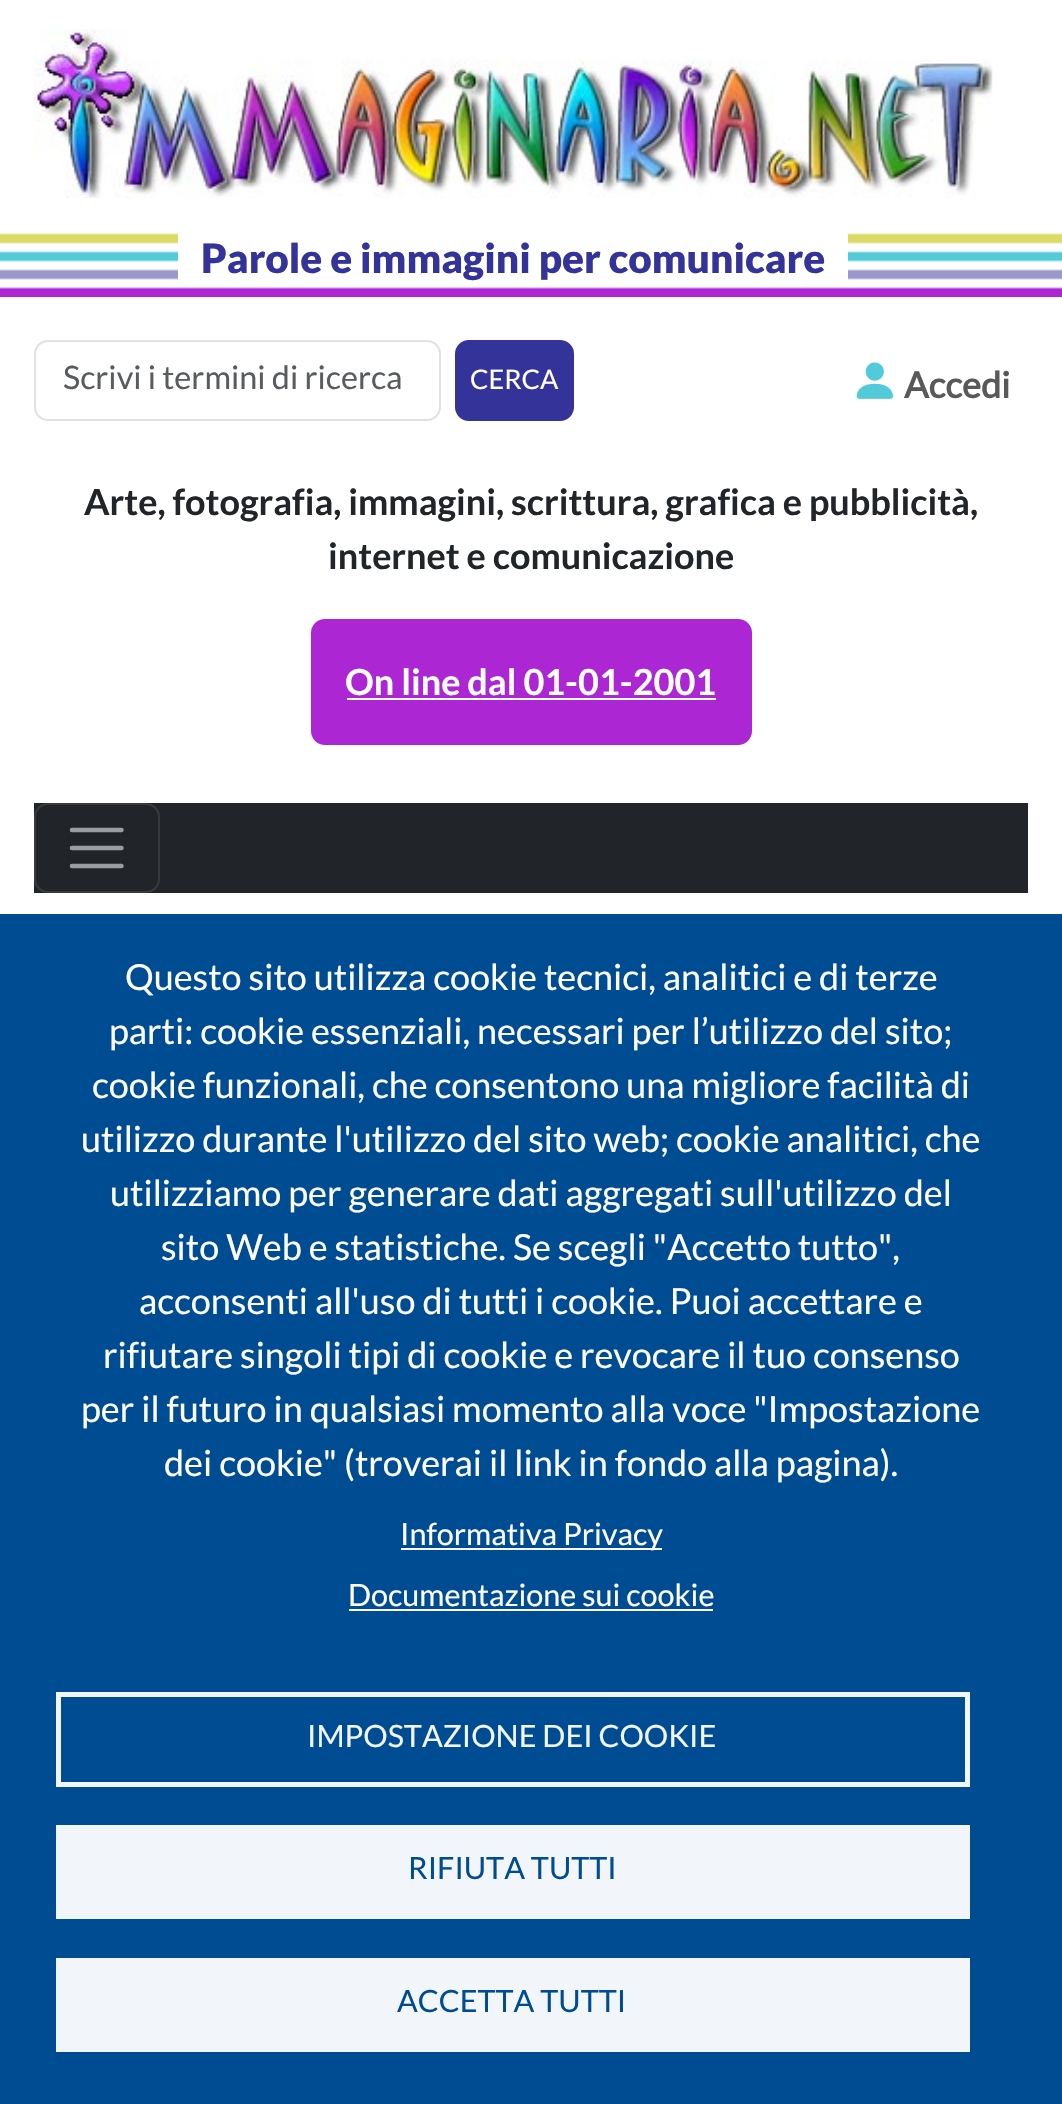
void draw(SkCanvas* canvas) {
	SkPaint fill;
	fill.setAntiAlias(true);
	auto makeFont = [&](const char* family, int weight, float size, bool italic = false) {
		SkFontStyle style(weight, SkFontStyle::kNormal_Width,
			italic ? SkFontStyle::kItalic_Slant : SkFontStyle::kUpright_Slant);
		SkFont result(fontMgr->matchFamilyStyle(family, style), size);
		result.setSubpixel(true);
		return result;
	};
	auto text = [&](const char* s, float x, float y, const SkFont& font) {
		canvas->drawString(s, x, y, font, fill);
	};
	auto box = [&](float l, float t, float r, float b) {
		canvas->drawRect(SkRect::MakeLTRB(l, t, r, b), fill);
	};
	auto roundBox = [&](float l, float t, float r, float b, float radius) {
		canvas->drawRoundRect(SkRect::MakeLTRB(l, t, r, b), radius, radius, fill);
	};
	auto picture = [&](const char* path, float l, float t, float r, float b) {
		auto image = SkImages::DeferredFromEncodedData(SkData::MakeFromFileName(path));
		canvas->drawImageRect(image, SkRect::MakeLTRB(l, t, r, b), SkSamplingOptions());
	};
	canvas->clear(0xFFFFFFFF);
	picture("image0.png", 0, 233, 1062, 297);
	picture("image1.png", 34, 29, 993, 198);
	fill.setColor(0xFFFFFFFF);
	box(178, 233, 848, 280);
	fill.setStyle(SkPaint::kStroke_Style);
	fill.setStrokeWidth(2);
	fill.setColor(0xFFDEE2E6);
	canvas->drawRoundRect(SkRect::MakeLTRB(35, 341, 440, 420), 13, 13, fill);
	fill.setStyle(SkPaint::kFill_Style);
	fill.setColor(0xFF333399);
	canvas->drawRoundRect(SkRect::MakeLTRB(456, 341, 573, 420), 13, 13, fill);
	fill.setStyle(SkPaint::kStroke_Style);
	canvas->drawRoundRect(SkRect::MakeLTRB(456, 341, 573, 420), 13, 13, fill);
	picture("image2.png", 856, 362, 894, 399);
	fill.setStyle(SkPaint::kFill_Style);
	fill.setColor(0xFFAD26D4);
	roundBox(311, 619, 752, 745, 14);
	fill.setColor(0xFFFFFFFF);
	box(347, 698, 716, 700);
	fill.setColor(0xFF212529);
	box(34, 803, 1028, 893);
	fill.setStyle(SkPaint::kStroke_Style);
	fill.setColor(0xFF373B3E);
	canvas->drawRoundRect(SkRect::MakeLTRB(35, 804, 159, 892), 13, 13, fill);
	fill.setStrokeWidth(4.5f);
	fill.setStrokeCap(SkPaint::kRound_Cap);
	fill.setColor(0xFF9B9D9F);
	canvas->drawPath(SkPathBuilder().moveTo(72, 830).lineTo(121.5f, 830).moveTo(72, 848).lineTo(121.5f, 848).moveTo(72, 866).lineTo(121.5f, 866).detach(), fill);
	fill.setStyle(SkPaint::kFill_Style);
	fill.setColor(0xFF004C93);
	box(0, 914, 1062, 2104);
	fill.setColor(0xFFFFFFFF);
	box(401, 1548, 662, 1550);
	box(349, 1609, 713, 1611);
	fill.setStyle(SkPaint::kStroke_Style);
	fill.setStrokeWidth(5);
	fill.setStrokeCap(SkPaint::kButt_Cap);
	fill.setColor(0xFFF2F6FA);
	canvas->drawRect(SkRect::MakeLTRB(58.5f, 1694.5f, 967.5f, 1784.5f), fill);
	fill.setStyle(SkPaint::kFill_Style);
	box(56, 1825, 970, 1919);
	box(56, 1958, 970, 2052);
	auto font1 = makeFont("Lato", 900, 40.5f);
	fill.setColor(0xFF333399);
	text("Parole e immagini per comunicare", 201, 273, font1);
	auto font2 = makeFont("Lato", 400, 32.4f);
	fill.setColor(0xFF595C5F);
	text("Scrivi i termini di ricerca", 63, 389, font2);
	auto font3 = makeFont("Lato", 400, 27);
	fill.setColor(0xFFFFFFFF);
	text("CERCA", 470, 389, font3);
	auto font4 = makeFont("Lato", 700, 36);
	fill.setColor(0xFF595959);
	text("Accedi", 904, 398, font4);
	auto font5 = makeFont("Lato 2", 700, 36);
	fill.setColor(0xFF212529);
	text("Arte, fotografia, immagini, scrittura, grafica e pubblicità,", 84, 515, font5);
	text("internet e comunicazione", 328, 569, font5);
	fill.setColor(0xFFFFFFFF);
	text("On line dal 01-01-2001", 345, 695, font5);
	auto font6 = makeFont("Lato", 400, 36);
	text("Questo sito utilizza cookie tecnici, analitici e di terze", 125, 990, font6);
	text("parti: cookie essenziali, necessari per l’utilizzo del sito;", 109, 1044, font6);
	text("cookie funzionali, che consentono una migliore facilità di", 92, 1098, font6);
	text("utilizzo durante l'utilizzo del sito web; cookie analitici, che", 81, 1152, font6);
	text("utilizziamo per generare dati aggregati sull'utilizzo del", 110, 1206, font6);
	text("sito Web e statistiche. Se scegli \"Accetto tutto\",", 161, 1260, font6);
	text("acconsenti all'uso di tutti i cookie. Puoi accettare e", 139, 1314, font6);
	text("rifiutare singoli tipi di cookie e revocare il tuo consenso", 103, 1368, font6);
	text("per il futuro in qualsiasi momento alla voce \"Impostazione", 81, 1422, font6);
	text("dei cookie\" (troverai il link in fondo alla pagina).", 164, 1476, font6);
	auto font7 = makeFont("Lato", 400, 30.6f);
	text("Informativa Privacy", 400, 1545, font7);
	text("Documentazione sui cookie", 348, 1606, font7);
	fill.setColor(0xFFF2F6FA);
	text("IMPOSTAZIONE DEI COOKIE", 307, 1747, font7);
	fill.setColor(0xFF004C93);
	text("RIFIUTA TUTTI", 408, 1879, font7);
	text("ACCETTA TUTTI", 397, 2012, font7);
}
